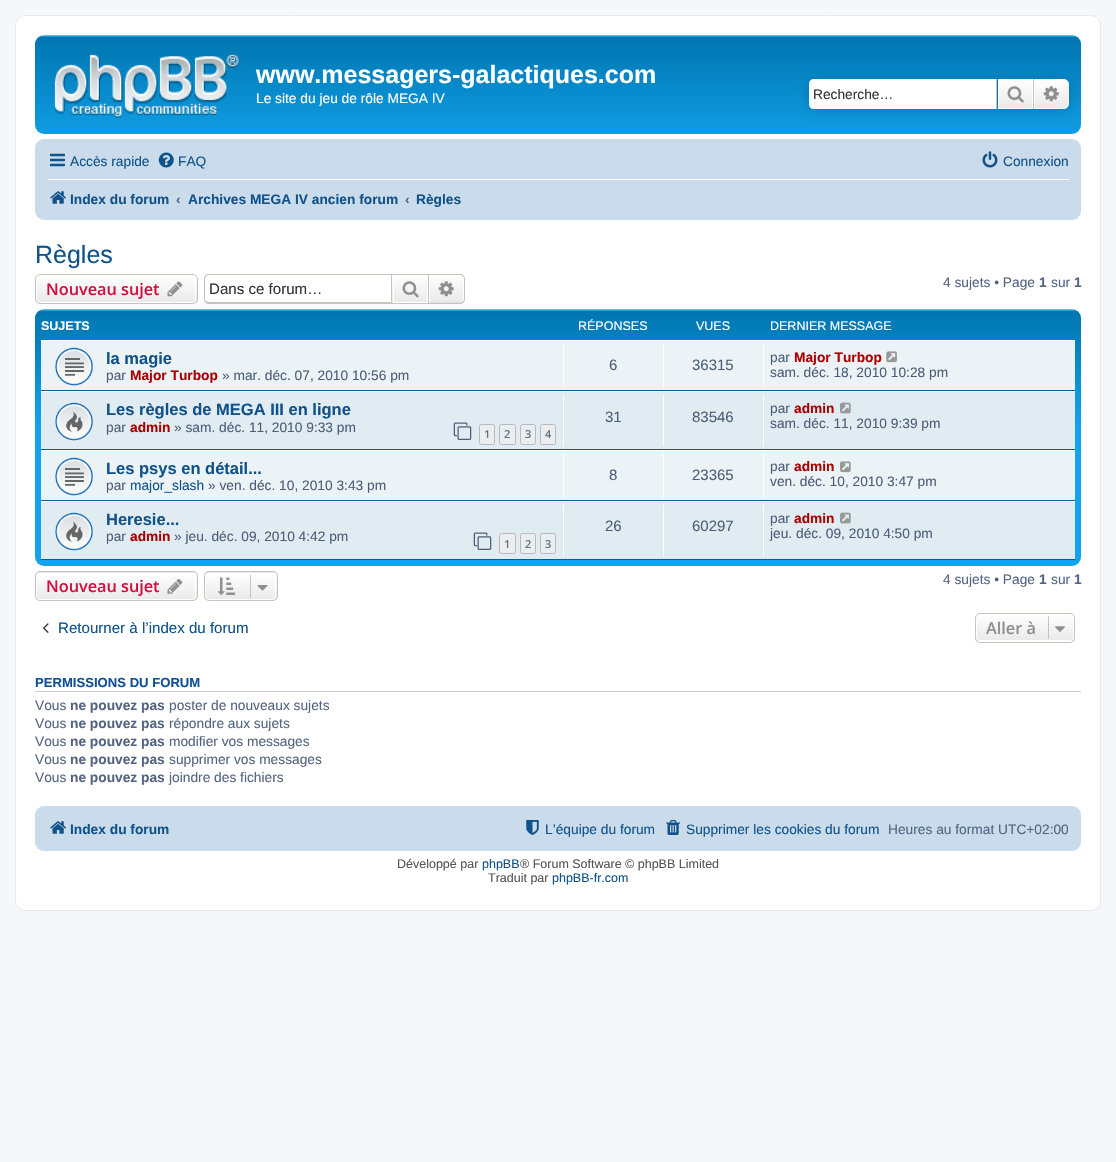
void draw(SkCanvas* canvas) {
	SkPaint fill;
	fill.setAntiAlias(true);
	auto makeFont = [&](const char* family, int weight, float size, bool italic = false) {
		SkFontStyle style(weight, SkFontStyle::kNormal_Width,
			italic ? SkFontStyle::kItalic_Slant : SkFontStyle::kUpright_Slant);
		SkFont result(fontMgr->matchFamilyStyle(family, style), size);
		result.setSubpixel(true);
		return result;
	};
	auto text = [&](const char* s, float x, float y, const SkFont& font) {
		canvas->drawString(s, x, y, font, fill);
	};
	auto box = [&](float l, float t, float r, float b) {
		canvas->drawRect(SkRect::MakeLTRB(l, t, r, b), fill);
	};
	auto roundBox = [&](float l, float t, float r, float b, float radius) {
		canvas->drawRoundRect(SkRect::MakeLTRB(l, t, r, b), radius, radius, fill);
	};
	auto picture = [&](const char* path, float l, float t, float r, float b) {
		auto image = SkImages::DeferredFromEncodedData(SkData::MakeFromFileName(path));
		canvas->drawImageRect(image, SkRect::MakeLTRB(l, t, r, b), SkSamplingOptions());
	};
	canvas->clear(0xFFF5F7FA);
	fill.setColor(0xFFFFFFFF);
	canvas->drawRoundRect(SkRect::MakeLTRB(15.5f, 15.5f, 1100.5f, 910.5f), 9.5f, 9.5f, fill);
	fill.setStyle(SkPaint::kStroke_Style);
	fill.setStrokeWidth(1);
	fill.setColor(0xFFE6E9ED);
	canvas->drawRoundRect(SkRect::MakeLTRB(15.5f, 15.5f, 1100.5f, 910.5f), 9.5f, 9.5f, fill);
	fill.setStyle(SkPaint::kFill_Style);
	{
		const SkColor colors[] = {0xFF6ACEFF, 0xFF0076B1, 0xFF12A3EB};
		const float stops[] = {0, 0.02f, 1};
		const SkPoint ends[] = {{558, 35}, {558, 150}};
		fill.setShader(SkGradientShader::MakeLinear(ends, colors, stops, 3, SkTileMode::kClamp));
		fill.setAlpha(255);
	}
	roundBox(35, 35, 1081, 134, 9);
	picture("image0.png", 54, 54, 239, 118);
	fill.setShader(nullptr);
	fill.setColor(0xFF0075B0);
	fill.setMaskFilter(SkMaskFilter::MakeBlur(kNormal_SkBlurStyle, 6));
	canvas->drawRoundRect(SkRect::MakeLTRB(809, 79, 1069, 109), 5, 5, fill);
	fill.setMaskFilter(nullptr);
	fill.setColor(0xFFFFFFFF);
	canvas->drawPath(SkPathBuilder().moveTo(814, 79).lineTo(996, 79).lineTo(996, 109).lineTo(814, 109).cubicTo(811, 109, 809, 107, 809, 104).lineTo(809, 84).cubicTo(809, 81, 811, 79, 814, 79).close().detach(), fill);
	{
		const SkColor colors[] = {0xFFFFFFFF, 0xFFE9E9E9};
		const float stops[] = {0, 1};
		const SkPoint ends[] = {{1015, 79}, {1015, 109}};
		fill.setShader(SkGradientShader::MakeLinear(ends, colors, stops, 2, SkTileMode::kClamp));
		fill.setAlpha(255);
	}
	box(999, 80, 1032, 108);
	fill.setStyle(SkPaint::kStroke_Style);
	fill.setShader(nullptr);
	fill.setColor(0xFFFFFFFF);
	canvas->drawRect(SkRect::MakeLTRB(998.5f, 79.5f, 1032.5f, 108.5f), fill);
	fill.setStyle(SkPaint::kFill_Style);
	fill.setColor(0xFFC7C3BF);
	box(1033, 79, 1034, 109);
	box(996, 79, 997, 109);
	picture("image1.png", 1007, 86, 1024, 103);
	{
		const SkColor colors[] = {0xFFFFFFFF, 0xFFE9E9E9};
		const float stops[] = {0, 1};
		const SkPoint ends[] = {{1051, 79}, {1051, 109}};
		fill.setShader(SkGradientShader::MakeLinear(ends, colors, stops, 2, SkTileMode::kClamp));
		fill.setAlpha(255);
	}
	canvas->drawPath(SkPathBuilder().moveTo(1034.5f, 79.5f).lineTo(1064, 79.5f).cubicTo(1066.5f, 79.5f, 1068.5f, 81.5f, 1068.5f, 84).lineTo(1068.5f, 104).cubicTo(1068.5f, 106.5f, 1066.5f, 108.5f, 1064, 108.5f).lineTo(1034.5f, 108.5f).close().detach(), fill);
	fill.setStyle(SkPaint::kStroke_Style);
	fill.setShader(nullptr);
	fill.setColor(0xFFFFFFFF);
	canvas->drawPath(SkPathBuilder().moveTo(1034.5f, 79.5f).lineTo(1064, 79.5f).cubicTo(1066.5f, 79.5f, 1068.5f, 81.5f, 1068.5f, 84).lineTo(1068.5f, 104).cubicTo(1068.5f, 106.5f, 1066.5f, 108.5f, 1064, 108.5f).lineTo(1034.5f, 108.5f).close().detach(), fill);
	picture("image2.png", 1043, 86, 1059, 102);
	fill.setStyle(SkPaint::kFill_Style);
	fill.setColor(0xFFCADCEB);
	roundBox(35, 139, 1081, 220, 9);
	picture("image3.png", 50, 153, 65, 167);
	picture("image4.png", 158, 152, 174, 168);
	picture("image5.png", 982, 151, 998, 168);
	fill.setColor(0xFFFFFFFF);
	box(48, 179, 1069, 180);
	picture("image6.png", 50, 191, 66, 204);
	canvas->save();
	canvas->clipPath(SkPathBuilder().moveTo(40, 274).lineTo(193, 274).cubicTo(196, 274, 198, 276, 198, 279).lineTo(198, 299).cubicTo(198, 302, 196, 304, 193, 304).lineTo(40, 304).cubicTo(37, 304, 35, 302, 35, 299).lineTo(35, 279).cubicTo(35, 276, 37, 274, 40, 274).close().detach(), true);
	{
		const SkColor colors[] = {0xFFFFFFFF, 0xFFE9E9E9};
		const float stops[] = {0, 1};
		const SkPoint ends[] = {{116, 275}, {116, 303}};
		fill.setShader(SkGradientShader::MakeLinear(ends, colors, stops, 2, SkTileMode::kClamp));
		fill.setAlpha(255);
	}
	box(35, 275, 198, 303);
	canvas->restore();
	fill.setStyle(SkPaint::kStroke_Style);
	fill.setShader(nullptr);
	fill.setColor(0xFFFFFFFF);
	canvas->drawRoundRect(SkRect::MakeLTRB(36.5f, 275.5f, 195.5f, 302.5f), 3.5f, 3.5f, fill);
	fill.setColor(0xFFC7C3BF);
	canvas->drawRoundRect(SkRect::MakeLTRB(35.5f, 274.5f, 197.5f, 303.5f), 4.5f, 4.5f, fill);
	picture("image7.png", 167, 281, 183, 297);
	fill.setStyle(SkPaint::kFill_Style);
	canvas->drawPath(SkPathBuilder(SkPathFillType::kEvenOdd).moveTo(209, 274).lineTo(391, 274).lineTo(391, 304).lineTo(209, 304).cubicTo(206, 304, 204, 302, 204, 299).lineTo(204, 279).cubicTo(204, 276, 206, 274, 209, 274).close().moveTo(209, 275).lineTo(391, 275).lineTo(391, 302).lineTo(209, 302).cubicTo(207, 302, 205, 301, 205, 299).lineTo(205, 279).cubicTo(205, 277, 207, 275, 209, 275).close().detach(), fill);
	{
		const SkColor colors[] = {0xFFFFFFFF, 0xFFE9E9E9};
		const float stops[] = {0, 1};
		const SkPoint ends[] = {{410, 275}, {410, 303}};
		fill.setShader(SkGradientShader::MakeLinear(ends, colors, stops, 2, SkTileMode::kClamp));
		fill.setAlpha(255);
	}
	box(392, 278, 427, 303);
	fill.setStyle(SkPaint::kStroke_Style);
	fill.setShader(nullptr);
	fill.setColor(0xFFFFFFFF);
	canvas->drawRect(SkRect::MakeLTRB(393.5f, 275.5f, 427.5f, 302.5f), fill);
	fill.setColor(0xFFC7C3BF);
	canvas->drawRect(SkRect::MakeLTRB(391.5f, 274.5f, 428.5f, 303.5f), fill);
	picture("image8.png", 402, 281, 419, 298);
	fill.setStyle(SkPaint::kFill_Style);
	{
		const SkColor colors[] = {0xFFFFFFFF, 0xFFE9E9E9};
		const float stops[] = {0, 1};
		const SkPoint ends[] = {{446, 275}, {446, 303}};
		fill.setShader(SkGradientShader::MakeLinear(ends, colors, stops, 2, SkTileMode::kClamp));
		fill.setAlpha(255);
	}
	canvas->drawPath(SkPathBuilder().moveTo(429.5f, 275.5f).lineTo(460, 275.5f).cubicTo(462, 275.5f, 463.5f, 277, 463.5f, 279).lineTo(463.5f, 299).cubicTo(463.5f, 301, 462, 302.5f, 460, 302.5f).lineTo(429.5f, 302.5f).close().detach(), fill);
	fill.setStyle(SkPaint::kStroke_Style);
	fill.setShader(nullptr);
	fill.setColor(0xFFFFFFFF);
	canvas->drawPath(SkPathBuilder().moveTo(429.5f, 275.5f).lineTo(460, 275.5f).cubicTo(462, 275.5f, 463.5f, 277, 463.5f, 279).lineTo(463.5f, 299).cubicTo(463.5f, 301, 462, 302.5f, 460, 302.5f).lineTo(429.5f, 302.5f).close().detach(), fill);
	fill.setStyle(SkPaint::kFill_Style);
	fill.setColor(0xFFC7C3BF);
	canvas->drawPath(SkPathBuilder(SkPathFillType::kEvenOdd).moveTo(429, 274).lineTo(460, 274).cubicTo(463, 274, 465, 276, 465, 279).lineTo(465, 299).cubicTo(465, 301.5f, 463, 304, 460, 304).lineTo(429, 304).close().moveTo(429, 275).lineTo(460, 275).cubicTo(462, 275, 464, 276.5f, 464, 279).lineTo(464, 299).cubicTo(464, 301, 462, 302.5f, 460, 302.5f).lineTo(429, 302.5f).close().detach(), fill);
	picture("image9.png", 438, 281, 454, 297);
	{
		const SkColor colors[] = {0xFF6ACEFF, 0xFF0076B1, 0xFF12A3EB, 0xFF12A3EB};
		const float stops[] = {0, 0.01f, 0.45f, 1};
		const SkPoint ends[] = {{558, 309}, {558, 566}};
		fill.setShader(SkGradientShader::MakeLinear(ends, colors, stops, 4, SkTileMode::kClamp));
		fill.setAlpha(255);
	}
	roundBox(35, 309, 1081, 566, 9);
	fill.setShader(nullptr);
	fill.setColor(0xFFECF3F7);
	box(41, 341, 1075, 390);
	fill.setColor(0xFFFFFFFF);
	box(41, 340, 1075, 341);
	fill.setColor(0xFF00608F);
	box(41, 390, 1075, 391);
	picture("image10.png", 55, 347, 93, 386);
	fill.setColor(0xFFFFFFFF);
	box(563, 344, 564, 388);
	box(663, 344, 664, 388);
	box(763, 344, 764, 388);
	picture("image11.png", 886, 351, 897, 363);
	fill.setColor(0xFFE1EBF2);
	box(41, 392, 1075, 449);
	fill.setColor(0xFFFFFFFF);
	box(41, 391, 1075, 392);
	fill.setColor(0xFF00608F);
	box(41, 449, 1075, 450);
	picture("image12.png", 55, 402, 93, 441);
	picture("image13.png", 453, 422, 472, 440);
	fill.setColor(0xFFECEDEE);
	canvas->drawRoundRect(SkRect::MakeLTRB(479.5f, 424.5f, 494.5f, 444.5f), 2, 2, fill);
	fill.setStyle(SkPaint::kStroke_Style);
	fill.setColor(0xFFB4BAC0);
	canvas->drawRoundRect(SkRect::MakeLTRB(479.5f, 424.5f, 494.5f, 444.5f), 2, 2, fill);
	fill.setStyle(SkPaint::kFill_Style);
	fill.setColor(0xFFECEDEE);
	canvas->drawRoundRect(SkRect::MakeLTRB(499.5f, 424.5f, 515.5f, 444.5f), 2, 2, fill);
	fill.setStyle(SkPaint::kStroke_Style);
	fill.setColor(0xFFB4BAC0);
	canvas->drawRoundRect(SkRect::MakeLTRB(499.5f, 424.5f, 515.5f, 444.5f), 2, 2, fill);
	fill.setStyle(SkPaint::kFill_Style);
	fill.setColor(0xFFECEDEE);
	canvas->drawRoundRect(SkRect::MakeLTRB(520.5f, 424.5f, 535.5f, 444.5f), 2, 2, fill);
	fill.setStyle(SkPaint::kStroke_Style);
	fill.setColor(0xFFB4BAC0);
	canvas->drawRoundRect(SkRect::MakeLTRB(520.5f, 424.5f, 535.5f, 444.5f), 2, 2, fill);
	fill.setStyle(SkPaint::kFill_Style);
	fill.setColor(0xFFECEDEE);
	canvas->drawRoundRect(SkRect::MakeLTRB(540.5f, 424.5f, 555.5f, 444.5f), 2, 2, fill);
	fill.setStyle(SkPaint::kStroke_Style);
	fill.setColor(0xFFB4BAC0);
	canvas->drawRoundRect(SkRect::MakeLTRB(540.5f, 424.5f, 555.5f, 444.5f), 2, 2, fill);
	fill.setStyle(SkPaint::kFill_Style);
	fill.setColor(0xFFFFFFFF);
	box(563, 395, 564, 446);
	box(663, 395, 664, 446);
	box(763, 395, 764, 446);
	picture("image14.png", 840, 402, 851, 414);
	fill.setColor(0xFFECF3F7);
	box(41, 451, 1075, 500);
	fill.setColor(0xFFFFFFFF);
	box(41, 450, 1075, 451);
	fill.setColor(0xFF00608F);
	box(41, 500, 1075, 501);
	picture("image10.png", 55, 457, 93, 496);
	fill.setColor(0xFFFFFFFF);
	box(563, 454, 564, 498);
	box(663, 454, 664, 498);
	box(763, 454, 764, 498);
	picture("image15.png", 840, 461, 851, 473);
	fill.setColor(0xFFE1EBF2);
	box(41, 502, 1075, 559);
	fill.setColor(0xFFFFFFFF);
	box(41, 501, 1075, 502);
	fill.setColor(0xFF00608F);
	box(41, 559, 1075, 560);
	picture("image12.png", 55, 512, 93, 551);
	picture("image13.png", 473, 532, 492, 550);
	fill.setColor(0xFFECEDEE);
	canvas->drawRoundRect(SkRect::MakeLTRB(499.5f, 533.5f, 515.5f, 553.5f), 2, 2, fill);
	fill.setStyle(SkPaint::kStroke_Style);
	fill.setColor(0xFFB4BAC0);
	canvas->drawRoundRect(SkRect::MakeLTRB(499.5f, 533.5f, 515.5f, 553.5f), 2, 2, fill);
	fill.setStyle(SkPaint::kFill_Style);
	fill.setColor(0xFFECEDEE);
	canvas->drawRoundRect(SkRect::MakeLTRB(520.5f, 533.5f, 535.5f, 553.5f), 2, 2, fill);
	fill.setStyle(SkPaint::kStroke_Style);
	fill.setColor(0xFFB4BAC0);
	canvas->drawRoundRect(SkRect::MakeLTRB(520.5f, 533.5f, 535.5f, 553.5f), 2, 2, fill);
	fill.setStyle(SkPaint::kFill_Style);
	fill.setColor(0xFFECEDEE);
	canvas->drawRoundRect(SkRect::MakeLTRB(540.5f, 533.5f, 555.5f, 553.5f), 2, 2, fill);
	fill.setStyle(SkPaint::kStroke_Style);
	fill.setColor(0xFFB4BAC0);
	canvas->drawRoundRect(SkRect::MakeLTRB(540.5f, 533.5f, 555.5f, 553.5f), 2, 2, fill);
	fill.setStyle(SkPaint::kFill_Style);
	fill.setColor(0xFFFFFFFF);
	box(563, 505, 564, 556);
	box(663, 505, 664, 556);
	box(763, 505, 764, 556);
	picture("image14.png", 840, 512, 851, 524);
	canvas->save();
	canvas->clipPath(SkPathBuilder().moveTo(40, 571).lineTo(193, 571).cubicTo(196, 571, 198, 573, 198, 576).lineTo(198, 596).cubicTo(198, 599, 196, 601, 193, 601).lineTo(40, 601).cubicTo(37, 601, 35, 599, 35, 596).lineTo(35, 576).cubicTo(35, 573, 37, 571, 40, 571).close().detach(), true);
	{
		const SkColor colors[] = {0xFFFFFFFF, 0xFFE9E9E9};
		const float stops[] = {0, 1};
		const SkPoint ends[] = {{116, 545}, {116, 573}};
		fill.setShader(SkGradientShader::MakeLinear(ends, colors, stops, 2, SkTileMode::kClamp));
		fill.setAlpha(255);
	}
	box(35, 571, 198, 573);
	{
		const SkColor colors[] = {0xFFFFFFFF, 0xFFE9E9E9};
		const float stops[] = {0, 1};
		const SkPoint ends[] = {{116, 573}, {116, 600}};
		fill.setShader(SkGradientShader::MakeLinear(ends, colors, stops, 2, SkTileMode::kClamp));
		fill.setAlpha(255);
	}
	box(35, 573, 198, 600);
	canvas->restore();
	fill.setStyle(SkPaint::kStroke_Style);
	fill.setShader(nullptr);
	fill.setColor(0xFFFFFFFF);
	canvas->drawRoundRect(SkRect::MakeLTRB(36.5f, 573.5f, 195.5f, 599.5f), 3.5f, 3.5f, fill);
	fill.setColor(0xFFC7C3BF);
	canvas->drawRoundRect(SkRect::MakeLTRB(35.5f, 571.5f, 197.5f, 600.5f), 4.5f, 4.5f, fill);
	picture("image16.png", 167, 579, 183, 594);
	canvas->save();
	canvas->clipPath(SkPathBuilder().moveTo(209, 571).lineTo(273, 571).cubicTo(276, 571, 278, 573, 278, 576).lineTo(278, 596).cubicTo(278, 599, 276, 601, 273, 601).lineTo(209, 601).cubicTo(206, 601, 204, 599, 204, 596).lineTo(204, 576).cubicTo(204, 573, 206, 571, 209, 571).close().detach(), true);
	fill.setStyle(SkPaint::kFill_Style);
	{
		const SkColor colors[] = {0xFFFFFFFF, 0xFFE9E9E9};
		const float stops[] = {0, 1};
		const SkPoint ends[] = {{241, 545}, {241, 573}};
		fill.setShader(SkGradientShader::MakeLinear(ends, colors, stops, 2, SkTileMode::kClamp));
		fill.setAlpha(255);
	}
	box(204, 571, 278, 573);
	{
		const SkColor colors[] = {0xFFFFFFFF, 0xFFE9E9E9};
		const float stops[] = {0, 1};
		const SkPoint ends[] = {{241, 573}, {241, 600}};
		fill.setShader(SkGradientShader::MakeLinear(ends, colors, stops, 2, SkTileMode::kClamp));
		fill.setAlpha(255);
	}
	box(204, 573, 278, 600);
	canvas->restore();
	fill.setStyle(SkPaint::kStroke_Style);
	fill.setShader(nullptr);
	fill.setColor(0xFFFFFFFF);
	canvas->drawRoundRect(SkRect::MakeLTRB(205.5f, 573.5f, 275.5f, 599.5f), 3.5f, 3.5f, fill);
	fill.setColor(0xFFC7C3BF);
	canvas->drawRoundRect(SkRect::MakeLTRB(204.5f, 571.5f, 277.5f, 600.5f), 4.5f, 4.5f, fill);
	picture("image17.png", 217, 577, 235, 595);
	fill.setStyle(SkPaint::kFill_Style);
	box(250, 575, 251, 598);
	picture("image18.png", 257, 585, 268, 591);
	picture("image19.png", 43, 623, 49, 633);
	canvas->save();
	canvas->clipPath(SkPathBuilder().moveTo(980, 613).lineTo(1070, 613).cubicTo(1073, 613, 1075, 615, 1075, 618).lineTo(1075, 638).cubicTo(1075, 641, 1073, 643, 1070, 643).lineTo(980, 643).cubicTo(977, 643, 975, 641, 975, 638).lineTo(975, 618).cubicTo(975, 615, 977, 613, 980, 613).close().detach(), true);
	{
		const SkColor colors[] = {0xFFFFFFFF, 0xFFE9E9E9};
		const float stops[] = {0, 1};
		const SkPoint ends[] = {{1025, 614}, {1025, 641}};
		fill.setShader(SkGradientShader::MakeLinear(ends, colors, stops, 2, SkTileMode::kClamp));
		fill.setAlpha(255);
	}
	box(975, 614, 1075, 641);
	canvas->restore();
	fill.setStyle(SkPaint::kStroke_Style);
	fill.setShader(nullptr);
	fill.setColor(0xFFFFFFFF);
	canvas->drawRoundRect(SkRect::MakeLTRB(976.5f, 614.5f, 1073.5f, 640.5f), 3.5f, 3.5f, fill);
	fill.setColor(0xFFC7C3BF);
	canvas->drawRoundRect(SkRect::MakeLTRB(975.5f, 613.5f, 1074.5f, 642.5f), 4.5f, 4.5f, fill);
	fill.setStyle(SkPaint::kFill_Style);
	box(1048, 616, 1049, 639);
	picture("image20.png", 1055, 626, 1065, 632);
	fill.setColor(0xFFCCCCCC);
	box(35, 691, 1081, 692);
	fill.setColor(0xFFCADCEB);
	roundBox(35, 806, 1081, 851, 9);
	picture("image6.png", 50, 821, 66, 834);
	picture("image21.png", 526, 820, 539, 835);
	picture("image22.png", 666, 820, 680, 835);
	auto font1 = makeFont("Liberation Sans", 700, 25);
	fill.setColor(0xFFFFFFFF);
	text("www.messagers-galactiques.com", 256, 83, font1);
	auto font2 = makeFont("Liberation Sans", 400, 13.75f);
	text("Le site du jeu de rôle MEGA IV", 256, 103, font2);
	fill.setColor(0xFF333333);
	text("Recherche…", 813, 99, font2);
	fill.setColor(0xFF105289);
	text("Accès rapide", 70, 166, font2);
	text("FAQ", 178, 166, font2);
	text("Connexion", 1003, 166, font2);
	auto font3 = makeFont("Liberation Sans", 700, 13.75f);
	text("Index du forum", 70, 204, font3);
	fill.setColor(0xFF536482);
	text("‹", 176, 204, font3);
	fill.setColor(0xFF105289);
	text("Archives MEGA IV ancien forum", 188, 204, font3);
	fill.setColor(0xFF536482);
	text("‹", 405, 204, font3);
	fill.setColor(0xFF105289);
	text("Règles", 416, 204, font3);
	auto font4 = makeFont("Liberation Sans", 400, 25);
	text("Règles", 35, 263, font4);
	auto font5 = makeFont("Open Sans", 600, 16.25f);
	fill.setColor(0xFFD31141);
	text("Nouveau sujet", 46, 295, font5);
	auto font6 = makeFont("Liberation Sans", 400, 15.1f);
	fill.setColor(0xFF333333);
	text("Dans ce forum…", 209, 294, font6);
	fill.setColor(0xFF536482);
	text("4 sujets • Page", 943, 287, font2);
	text("1", 1039, 287, font3);
	text("sur", 1051, 287, font2);
	text("1", 1074, 287, font3);
	auto font7 = makeFont("Liberation Sans", 700, 12.5f);
	fill.setColor(0xFFFFFFFF);
	text("SUJETS", 41, 330, font7);
	auto font8 = makeFont("Liberation Sans", 400, 12.5f);
	text("RÉPONSES", 578, 330, font8);
	text("VUES", 696, 330, font8);
	text("DERNIER MESSAGE", 770, 330, font8);
	auto font9 = makeFont("Liberation Sans", 700, 16.5f);
	fill.setColor(0xFF105289);
	text("la magie", 106, 364, font9);
	fill.setColor(0xFF4C5D77);
	text("par", 106, 380, font2);
	fill.setColor(0xFFAA0000);
	text("Major Turbop", 130, 380, font3);
	fill.setColor(0xFF4C5D77);
	text("» mar. déc. 07, 2010 10:56 pm", 222, 380, font2);
	auto font10 = makeFont("Liberation Sans", 400, 15);
	text("6", 609, 370, font10);
	text("36315", 692, 370, font10);
	text("par", 770, 362, font2);
	fill.setColor(0xFFAA0000);
	text("Major Turbop", 794, 362, font3);
	fill.setColor(0xFF4C5D77);
	text("sam. déc. 18, 2010 10:28 pm", 770, 377, font2);
	fill.setColor(0xFF105289);
	text("Les règles de MEGA III en ligne", 106, 415, font9);
	fill.setColor(0xFF4C5D77);
	text("par", 106, 432, font2);
	fill.setColor(0xFFAA0000);
	text("admin", 130, 432, font3);
	fill.setColor(0xFF4C5D77);
	text("» sam. déc. 11, 2010 9:33 pm", 174, 432, font2);
	auto font11 = makeFont("Open Sans", 600, 11);
	fill.setColor(0xFF5C758C);
	text("1", 484, 438, font11);
	text("2", 504, 438, font11);
	text("3", 525, 438, font11);
	text("4", 545, 438, font11);
	fill.setColor(0xFF4C5D77);
	text("31", 605, 422, font10);
	text("83546", 692, 422, font10);
	text("par", 770, 413, font2);
	fill.setColor(0xFFAA0000);
	text("admin", 794, 413, font3);
	fill.setColor(0xFF4C5D77);
	text("sam. déc. 11, 2010 9:39 pm", 770, 428, font2);
	fill.setColor(0xFF105289);
	text("Les psys en détail...", 106, 474, font9);
	fill.setColor(0xFF4C5D77);
	text("par", 106, 490, font2);
	fill.setColor(0xFF105289);
	text("major_slash", 130, 490, font2);
	fill.setColor(0xFF4C5D77);
	text("» ven. déc. 10, 2010 3:43 pm", 208, 490, font2);
	text("8", 609, 480, font10);
	text("23365", 692, 480, font10);
	text("par", 770, 471, font2);
	fill.setColor(0xFFAA0000);
	text("admin", 794, 471, font3);
	fill.setColor(0xFF4C5D77);
	text("ven. déc. 10, 2010 3:47 pm", 770, 486, font2);
	fill.setColor(0xFF105289);
	text("Heresie...", 106, 525, font9);
	fill.setColor(0xFF4C5D77);
	text("par", 106, 541, font2);
	fill.setColor(0xFFAA0000);
	text("admin", 130, 541, font3);
	fill.setColor(0xFF4C5D77);
	text("» jeu. déc. 09, 2010 4:42 pm", 174, 541, font2);
	fill.setColor(0xFF5C758C);
	text("1", 504, 548, font11);
	text("2", 525, 548, font11);
	text("3", 545, 548, font11);
	fill.setColor(0xFF4C5D77);
	text("26", 605, 531, font10);
	text("60297", 692, 531, font10);
	text("par", 770, 523, font2);
	fill.setColor(0xFFAA0000);
	text("admin", 794, 523, font3);
	fill.setColor(0xFF4C5D77);
	text("jeu. déc. 09, 2010 4:50 pm", 770, 538, font2);
	fill.setColor(0xFFD31141);
	text("Nouveau sujet", 46, 592, font5);
	fill.setColor(0xFF536482);
	text("4 sujets • Page", 943, 584, font2);
	text("1", 1039, 584, font3);
	text("sur", 1051, 584, font2);
	text("1", 1074, 584, font3);
	fill.setColor(0xFF105289);
	text("Retourner à l’index du forum", 58, 633, font6);
	fill.setColor(0xFF8F8F8F);
	text("Aller à", 986, 634, font5);
	auto font12 = makeFont("Liberation Sans", 700, 13.1f);
	fill.setColor(0xFF115098);
	text("PERMISSIONS DU FORUM", 35, 687, font12);
	fill.setColor(0xFF536482);
	text("Vous", 35, 710, font2);
	text("ne pouvez pas", 70, 710, font3);
	text("poster de nouveaux sujets", 169, 710, font2);
	text("Vous", 35, 728, font2);
	text("ne pouvez pas", 70, 728, font3);
	text("répondre aux sujets", 169, 728, font2);
	text("Vous", 35, 746, font2);
	text("ne pouvez pas", 70, 746, font3);
	text("modifier vos messages", 169, 746, font2);
	text("Vous", 35, 764, font2);
	text("ne pouvez pas", 70, 764, font3);
	text("supprimer vos messages", 169, 764, font2);
	text("Vous", 35, 782, font2);
	text("ne pouvez pas", 70, 782, font3);
	text("joindre des fichiers", 169, 782, font2);
	fill.setColor(0xFF105289);
	text("Index du forum", 70, 834, font3);
	text("L’équipe du forum", 545, 834, font2);
	text("Supprimer les cookies du forum", 686, 834, font2);
	fill.setColor(0xFF536482);
	text("Heures au format UTC+02:00", 888, 834, font2);
	fill.setColor(0xFF555555);
	text("Développé par", 397, 868, font8);
	fill.setColor(0xFF105289);
	text("phpBB", 482, 868, font8);
	fill.setColor(0xFF555555);
	text("® Forum Software © phpBB Limited", 520, 868, font8);
	text("Traduit par", 488, 882, font8);
	fill.setColor(0xFF105289);
	text("phpBB-fr.com", 552, 882, font8);
}
